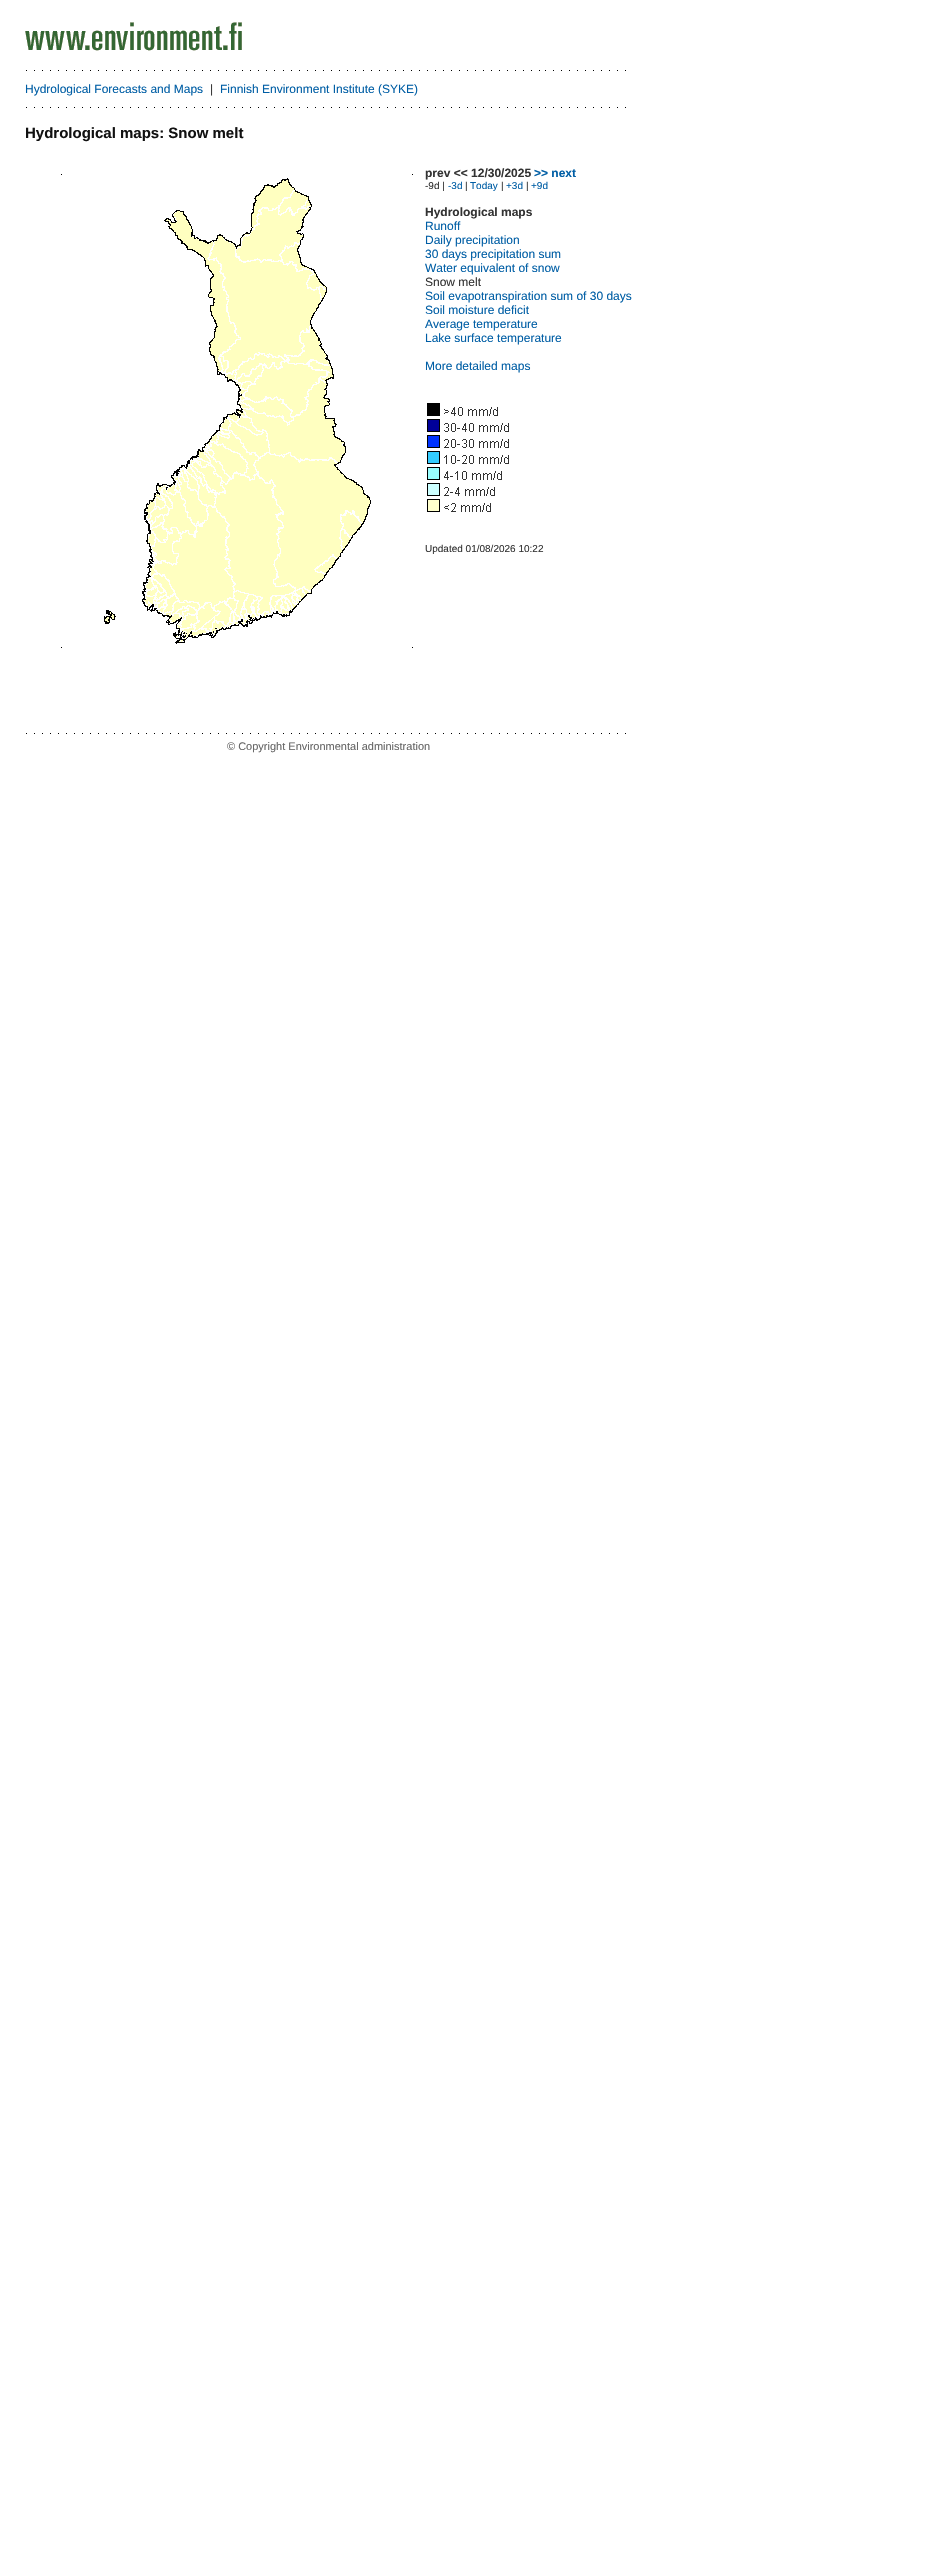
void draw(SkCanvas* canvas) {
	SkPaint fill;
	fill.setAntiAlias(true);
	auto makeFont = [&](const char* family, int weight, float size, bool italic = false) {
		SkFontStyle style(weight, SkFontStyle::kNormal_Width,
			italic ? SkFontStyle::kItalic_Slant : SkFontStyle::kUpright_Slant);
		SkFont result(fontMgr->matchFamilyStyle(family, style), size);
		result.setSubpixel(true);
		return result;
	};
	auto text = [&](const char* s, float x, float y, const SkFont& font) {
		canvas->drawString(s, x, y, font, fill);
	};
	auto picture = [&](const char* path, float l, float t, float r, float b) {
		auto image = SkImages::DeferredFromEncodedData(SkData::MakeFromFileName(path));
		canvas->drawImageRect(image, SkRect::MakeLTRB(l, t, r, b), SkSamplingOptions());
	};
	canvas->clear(0xFFFFFFFF);
	picture("image0.png", 25, 22, 242, 51);
	picture("image1.png", 26, 70, 626, 71);
	picture("image1.png", 26, 107, 626, 108);
	picture("image2.png", 61, 174, 413, 648);
	picture("image3.png", 427, 403, 509, 512);
	picture("image1.png", 26, 733, 626, 734);
	auto font1 = makeFont("Liberation Sans", 400, 12);
	fill.setColor(0xFF005EA5);
	text("Hydrological Forecasts and Maps", 25, 93, font1);
	fill.setColor(0xFF333333);
	text("|", 210, 93, font1);
	fill.setColor(0xFF005EA5);
	text("Finnish Environment Institute (SYKE)", 220, 93, font1);
	auto font2 = makeFont("Liberation Sans", 700, 15);
	fill.setColor(0xFF111111);
	text("Hydrological maps: Snow melt", 25, 138, font2);
	auto font3 = makeFont("Liberation Sans", 700, 12);
	fill.setColor(0xFF333333);
	text("prev << 12/30/2025", 425, 177, font3);
	fill.setColor(0xFF005EA5);
	text(">> next", 534, 177, font3);
	auto font4 = makeFont("Liberation Sans", 400, 10);
	fill.setColor(0xFF333333);
	text("-9d |", 425, 189, font4);
	fill.setColor(0xFF005EA5);
	text("-3d", 448, 189, font4);
	fill.setColor(0xFF333333);
	text("|", 465, 189, font4);
	fill.setColor(0xFF005EA5);
	text("Today", 470, 189, font4);
	fill.setColor(0xFF333333);
	text("|", 501, 189, font4);
	fill.setColor(0xFF005EA5);
	text("+3d", 506, 189, font4);
	fill.setColor(0xFF333333);
	text("|", 526, 189, font4);
	fill.setColor(0xFF005EA5);
	text("+9d", 531, 189, font4);
	fill.setColor(0xFF333333);
	text("Hydrological maps", 425, 216, font3);
	fill.setColor(0xFF005EA5);
	text("Runoff", 425, 230, font1);
	text("Daily precipitation", 425, 244, font1);
	text("30 days precipitation sum", 425, 258, font1);
	text("Water equivalent of snow", 425, 272, font1);
	fill.setColor(0xFF333333);
	text("Snow melt", 425, 286, font1);
	fill.setColor(0xFF005EA5);
	text("Soil evapotranspiration sum of 30 days", 425, 300, font1);
	text("Soil moisture deficit", 425, 314, font1);
	text("Average temperature", 425, 328, font1);
	text("Lake surface temperature", 425, 342, font1);
	text("More detailed maps", 425, 370, font1);
	fill.setColor(0xFF333333);
	text("Updated 01/08/2026 10:22", 425, 552, font4);
	auto font5 = makeFont("Liberation Sans", 400, 11);
	fill.setColor(0xFF666666);
	text("© Copyright Environmental administration", 227, 750, font5);
}
